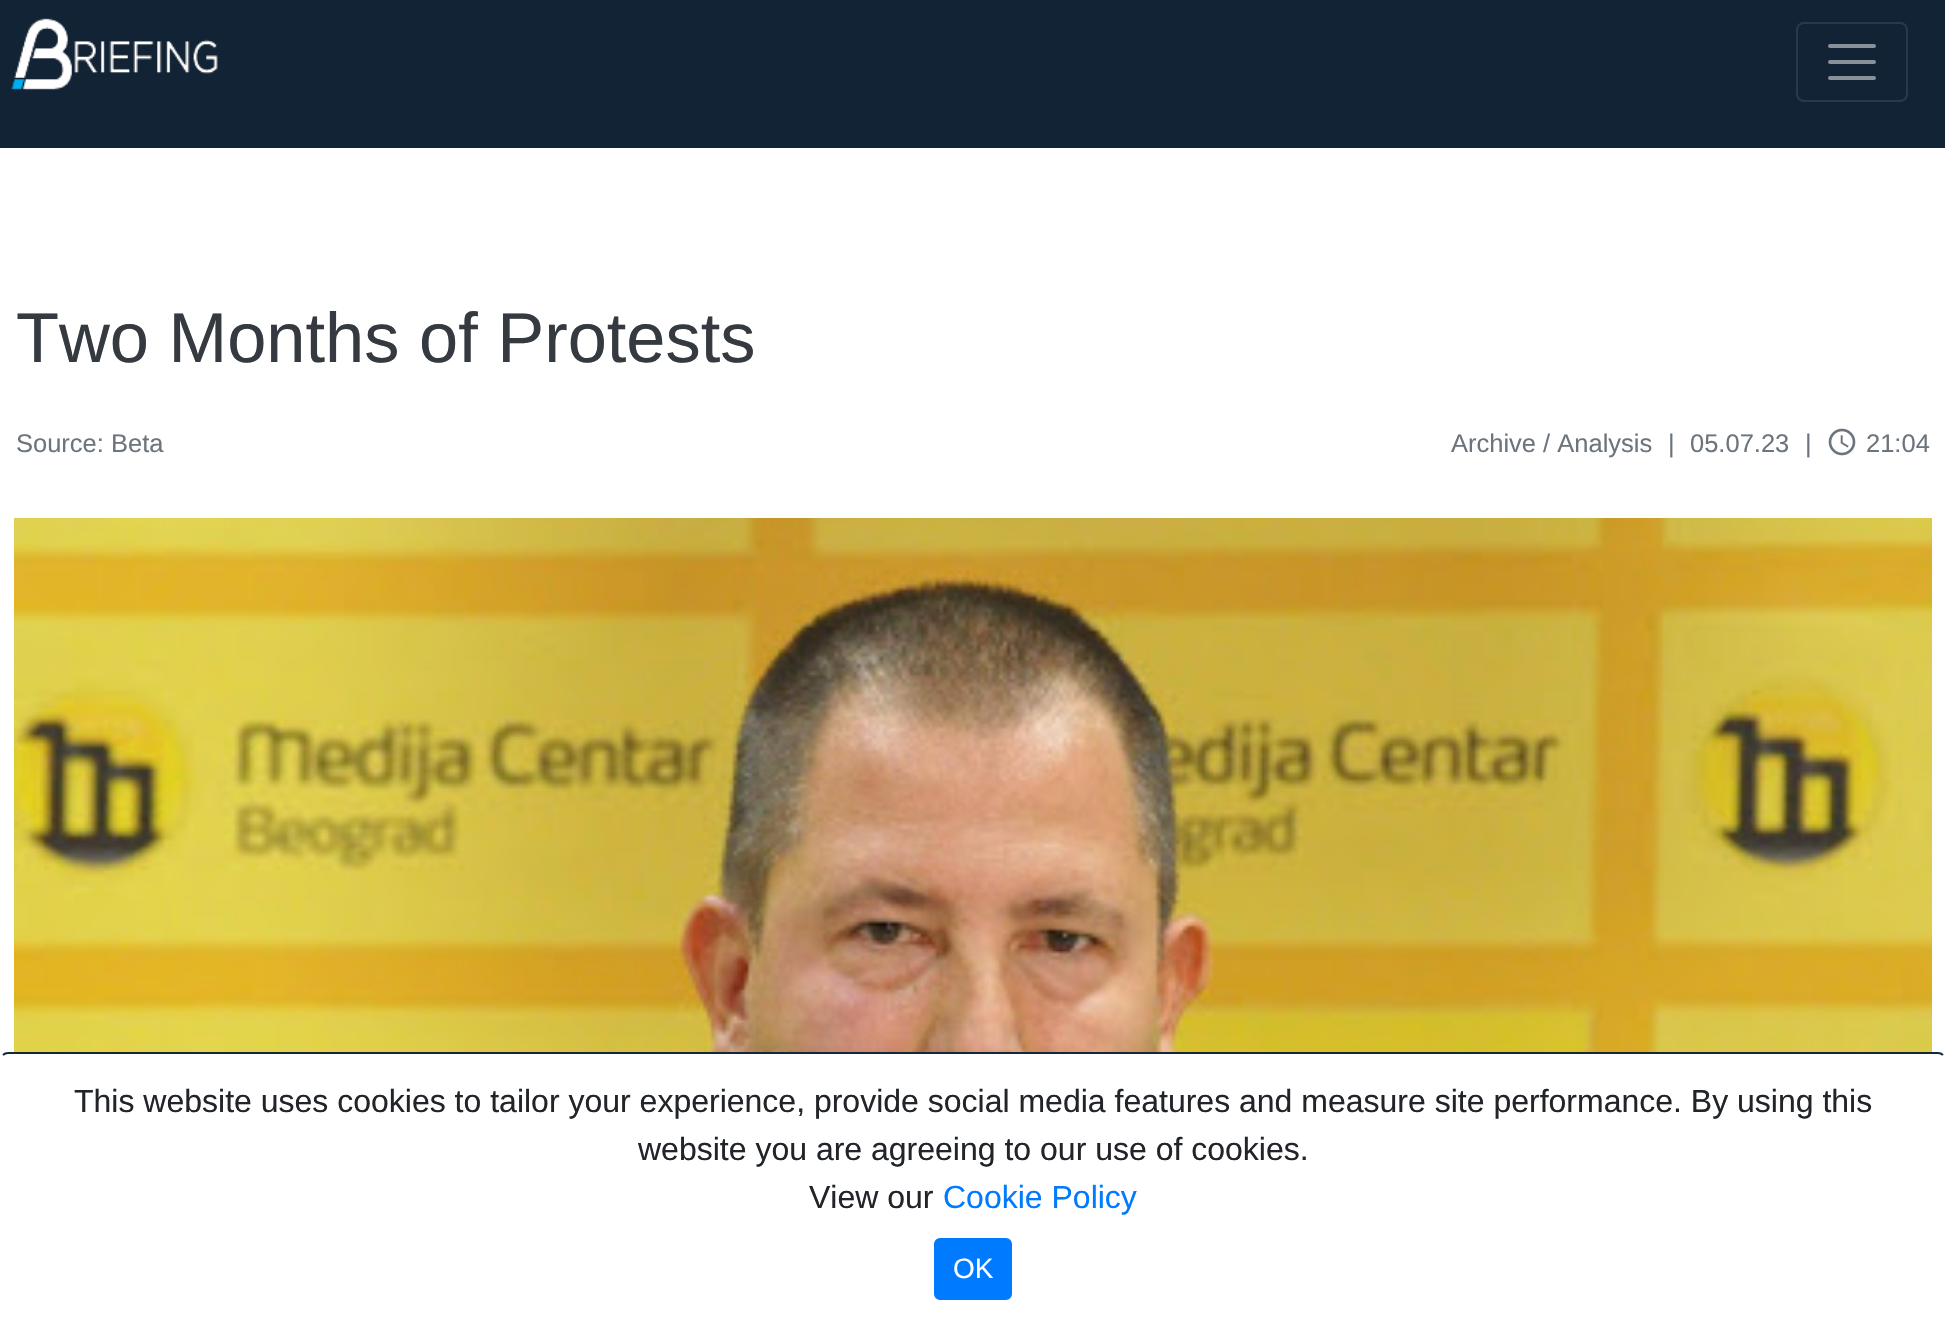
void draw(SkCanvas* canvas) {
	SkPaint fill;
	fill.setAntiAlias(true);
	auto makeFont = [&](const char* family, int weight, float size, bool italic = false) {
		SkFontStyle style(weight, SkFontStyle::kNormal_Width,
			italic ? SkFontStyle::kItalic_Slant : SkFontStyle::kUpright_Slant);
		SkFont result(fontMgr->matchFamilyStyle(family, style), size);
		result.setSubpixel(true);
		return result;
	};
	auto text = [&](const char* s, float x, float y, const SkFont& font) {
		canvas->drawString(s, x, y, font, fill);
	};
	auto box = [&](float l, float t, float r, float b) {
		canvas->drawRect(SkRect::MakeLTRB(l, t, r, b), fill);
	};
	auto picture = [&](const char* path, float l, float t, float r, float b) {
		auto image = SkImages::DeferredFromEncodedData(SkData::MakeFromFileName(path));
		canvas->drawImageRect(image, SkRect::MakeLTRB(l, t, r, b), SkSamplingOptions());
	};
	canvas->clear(0xFFFFFFFF);
	fill.setColor(0xFF112335);
	box(0, 0, 1945, 148);
	picture("image0.png", 11, 18, 218, 90);
	fill.setStyle(SkPaint::kStroke_Style);
	fill.setStrokeWidth(2);
	fill.setColor(0xFF293949);
	canvas->drawRoundRect(SkRect::MakeLTRB(1797, 23, 1907, 101), 7, 7, fill);
	fill.setStrokeWidth(4);
	fill.setStrokeCap(SkPaint::kRound_Cap);
	fill.setColor(0xFF88919A);
	canvas->drawPath(SkPathBuilder().moveTo(1830, 46).lineTo(1874, 46).moveTo(1830, 62).lineTo(1874, 62).moveTo(1830, 78).lineTo(1874, 78).detach(), fill);
	picture("image1.png", 1828, 428, 1856, 456);
	picture("image2.png", 14, 518, 1932, 1052);
	fill.setStrokeWidth(2);
	fill.setStrokeCap(SkPaint::kButt_Cap);
	fill.setColor(0xFF15273B);
	canvas->drawPath(SkPathBuilder().moveTo(3, 1055).cubicTo(4.5f, 1053.5f, 6, 1053, 8, 1053).lineTo(1938, 1053).cubicTo(1940, 1053, 1941.5f, 1053.5f, 1943, 1055).detach(), fill);
	fill.setStyle(SkPaint::kFill_Style);
	fill.setColor(0xFF007BFF);
	canvas->drawRoundRect(SkRect::MakeLTRB(935, 1239, 1011, 1299), 5, 5, fill);
	fill.setStyle(SkPaint::kStroke_Style);
	canvas->drawRoundRect(SkRect::MakeLTRB(935, 1239, 1011, 1299), 5, 5, fill);
	auto font1 = makeFont("Liberation Sans", 400, 70.4f);
	fill.setStyle(SkPaint::kFill_Style);
	fill.setColor(0xFF343A40);
	text("Two Months of Protests", 16, 362, font1);
	auto font2 = makeFont("Liberation Sans", 400, 25.5f);
	fill.setColor(0xFF6C757D);
	text("Source: Beta", 16, 452, font2);
	text("Archive / Analysis", 1451, 452, font2);
	text("|", 1668, 452, font2);
	text("05.07.23", 1690, 452, font2);
	text("|", 1805, 452, font2);
	text("21:04", 1866, 452, font2);
	auto font3 = makeFont("Liberation Sans", 400, 32);
	fill.setColor(0xFF212529);
	text("This website uses cookies to tailor your experience, provide social media features and measure site performance. By using this", 74, 1112, font3);
	text("website you are agreeing to our use of cookies.", 638, 1160, font3);
	text("View our", 809, 1208, font3);
	fill.setColor(0xFF007BFF);
	text("Cookie Policy", 943, 1208, font3);
	auto font4 = makeFont("Liberation Sans", 400, 28);
	fill.setColor(0xFFFFFFFF);
	text("OK", 953, 1278, font4);
}
